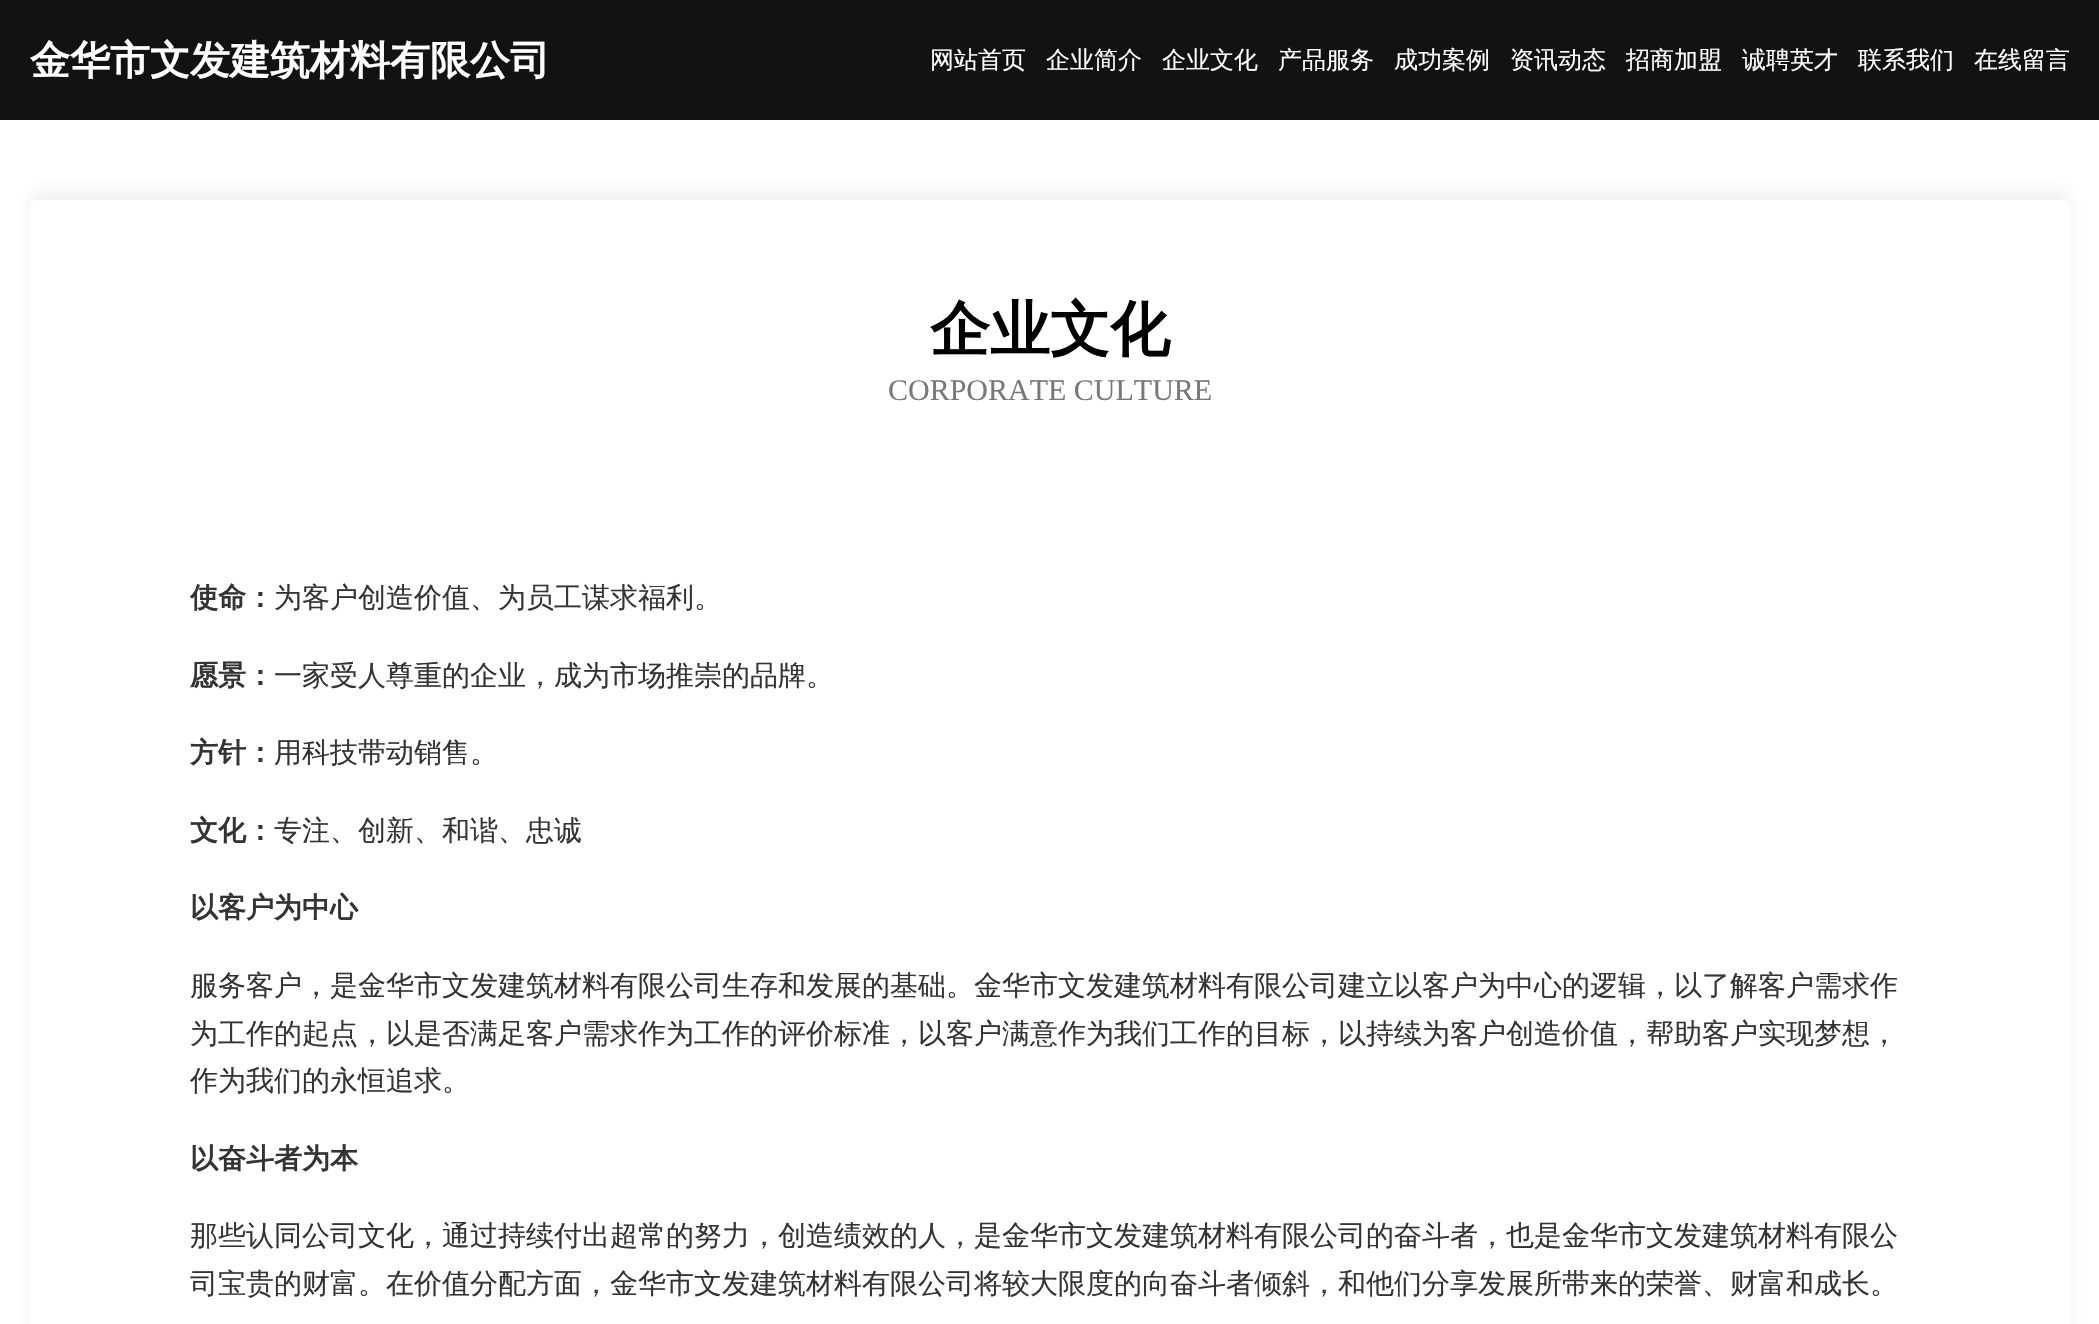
void draw(SkCanvas* canvas) {
	SkPaint fill;
	fill.setAntiAlias(true);
	auto makeFont = [&](const char* family, int weight, float size, bool italic = false) {
		SkFontStyle style(weight, SkFontStyle::kNormal_Width,
			italic ? SkFontStyle::kItalic_Slant : SkFontStyle::kUpright_Slant);
		SkFont result(fontMgr->matchFamilyStyle(family, style), size);
		result.setSubpixel(true);
		return result;
	};
	auto text = [&](const char* s, float x, float y, const SkFont& font) {
		canvas->drawString(s, x, y, font, fill);
	};
	auto box = [&](float l, float t, float r, float b) {
		canvas->drawRect(SkRect::MakeLTRB(l, t, r, b), fill);
	};
	auto roundBox = [&](float l, float t, float r, float b, float radius) {
		canvas->drawRoundRect(SkRect::MakeLTRB(l, t, r, b), radius, radius, fill);
	};
	canvas->clear(0xFFFFFFFF);
	fill.setColor(0xFF121212);
	box(0, 0, 2099, 120);
	fill.setColor(0x17424242);
	fill.setMaskFilter(SkMaskFilter::MakeBlur(kNormal_SkBlurStyle, 9));
	canvas->drawRoundRect(SkRect::MakeLTRB(32, 192, 2068, 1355), 4, 4, fill);
	fill.setMaskFilter(nullptr);
	fill.setColor(0xFFFFFFFF);
	roundBox(30, 200, 2070, 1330, 6);
	auto font1 = makeFont("WenQuanYi Zen Hei", 700, 40);
	text("金华市文发建筑材料有限公司", 30, 74, font1);
	auto font2 = makeFont("WenQuanYi Zen Hei", 500, 24);
	text("网站首页", 930, 68, font2);
	text("企业简介", 1046, 68, font2);
	text("企业文化", 1162, 68, font2);
	text("产品服务", 1278, 68, font2);
	text("成功案例", 1394, 68, font2);
	text("资讯动态", 1510, 68, font2);
	text("招商加盟", 1626, 68, font2);
	text("诚聘英才", 1742, 68, font2);
	text("联系我们", 1858, 68, font2);
	text("在线留言", 1974, 68, font2);
	auto font3 = makeFont("WenQuanYi Zen Hei", 700, 60);
	fill.setColor(0xFF000000);
	text("企业文化", 930, 350, font3);
	auto font4 = makeFont("Liberation Serif", 400, 30);
	fill.setColor(0xFF787878);
	text("CORPORATE CULTURE", 888, 400, font4);
	auto font5 = makeFont("WenQuanYi Zen Hei", 700, 28);
	fill.setColor(0xFF343434);
	text("使命：", 190, 607, font5);
	auto font6 = makeFont("WenQuanYi Zen Hei", 500, 28);
	text("为客户创造价值、为员工谋求福利。", 274, 607, font6);
	text("愿景：", 190, 685, font5);
	text("一家受人尊重的企业，成为市场推崇的品牌。", 274, 685, font6);
	text("方针：", 190, 762, font5);
	text("用科技带动销售。", 274, 762, font6);
	text("文化：", 190, 840, font5);
	text("专注、创新、和谐、忠诚", 274, 840, font6);
	text("以客户为中心", 190, 917, font5);
	text("服务客户，是金华市文发建筑材料有限公司生存和发展的基础。金华市文发建筑材料有限公司建立以客户为中心的逻辑，以了解客户需求作", 190, 995, font6);
	text("为工作的起点，以是否满足客户需求作为工作的评价标准，以客户满意作为我们工作的目标，以持续为客户创造价值，帮助客户实现梦想，", 190, 1043, font6);
	text("作为我们的永恒追求。", 190, 1090, font6);
	text("以奋斗者为本", 190, 1168, font5);
	text("那些认同公司文化，通过持续付出超常的努力，创造绩效的人，是金华市文发建筑材料有限公司的奋斗者，也是金华市文发建筑材料有限公", 190, 1245, font6);
	text("司宝贵的财富。在价值分配方面，金华市文发建筑材料有限公司将较大限度的向奋斗者倾斜，和他们分享发展所带来的荣誉、财富和成长。", 190, 1293, font6);
}
